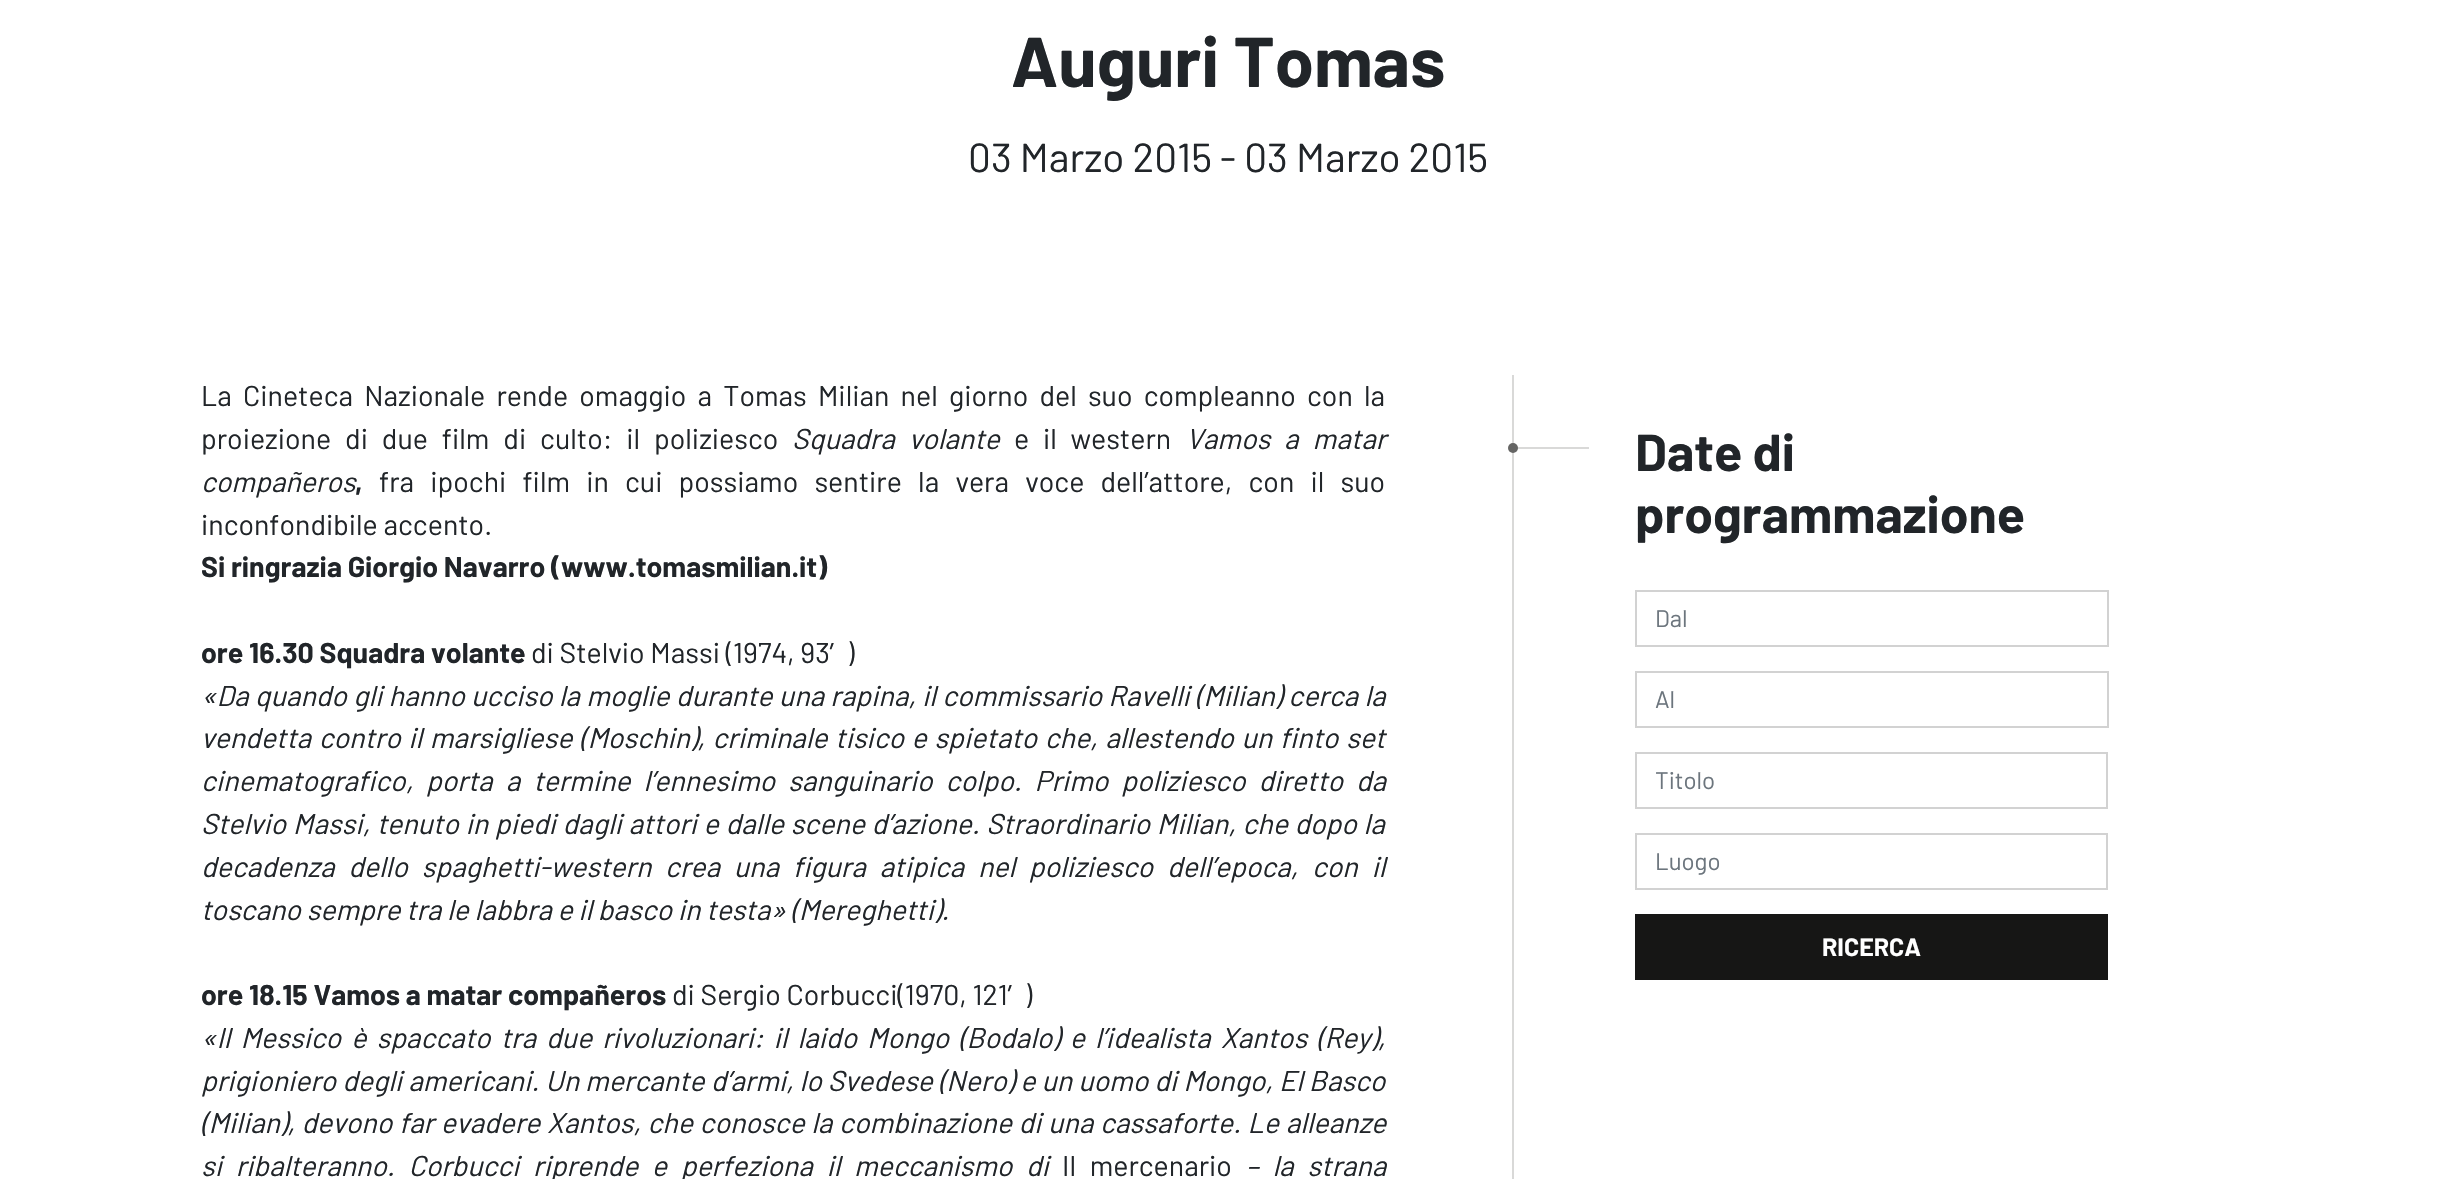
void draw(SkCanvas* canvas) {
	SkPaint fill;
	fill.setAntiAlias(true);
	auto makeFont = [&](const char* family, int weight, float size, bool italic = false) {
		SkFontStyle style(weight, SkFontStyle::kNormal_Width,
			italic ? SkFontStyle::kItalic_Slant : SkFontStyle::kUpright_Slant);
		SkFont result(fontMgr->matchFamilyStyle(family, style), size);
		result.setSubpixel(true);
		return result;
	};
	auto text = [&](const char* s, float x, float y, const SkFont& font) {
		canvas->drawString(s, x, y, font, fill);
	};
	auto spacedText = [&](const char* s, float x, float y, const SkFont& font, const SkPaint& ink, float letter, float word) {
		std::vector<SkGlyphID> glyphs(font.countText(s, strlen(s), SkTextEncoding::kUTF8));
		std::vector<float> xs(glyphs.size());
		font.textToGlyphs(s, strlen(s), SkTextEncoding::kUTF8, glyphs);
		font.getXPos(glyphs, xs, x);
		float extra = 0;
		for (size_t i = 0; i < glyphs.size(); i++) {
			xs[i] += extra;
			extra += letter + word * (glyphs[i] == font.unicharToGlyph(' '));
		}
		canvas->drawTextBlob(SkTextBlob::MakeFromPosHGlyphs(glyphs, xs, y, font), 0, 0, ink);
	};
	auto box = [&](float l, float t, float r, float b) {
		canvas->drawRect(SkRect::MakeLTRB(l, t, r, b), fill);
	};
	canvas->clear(0xFFFFFFFF);
	fill.setColor(0xFFD9D9D8);
	box(1512, 375, 1514, 1179);
	box(1514, 447, 1589, 449);
	fill.setColor(0xFF656564);
	canvas->drawCircle(1513, 448, 5, fill);
	fill.setStyle(SkPaint::kStroke_Style);
	fill.setStrokeWidth(2);
	fill.setColor(0xFFD2D2D2);
	canvas->drawRect(SkRect::MakeLTRB(1636, 591, 2108, 646), fill);
	canvas->drawRect(SkRect::MakeLTRB(1636, 672, 2108, 727), fill);
	canvas->drawRect(SkRect::MakeLTRB(1636, 753, 2107, 808), fill);
	canvas->drawRect(SkRect::MakeLTRB(1636, 834, 2107, 889), fill);
	fill.setStyle(SkPaint::kFill_Style);
	fill.setColor(0xFF161615);
	box(1635, 914, 2108, 980);
	auto font1 = makeFont("Barlow", 700, 70.5f);
	fill.setColor(0xFF212529);
	text("Auguri Tomas", 1011, 87, font1);
	auto font2 = makeFont("Barlow", 400, 40.5f);
	text("03 Marzo 2015 - 03 Marzo 2015", 968, 172, font2);
	auto font3 = makeFont("Barlow", 400, 28.5f);
	spacedText("La Cineteca Nazionale rende omaggio a Tomas Milian nel giorno del suo compleanno con la", 201, 406, font3, fill, 0, 5.5f);
	spacedText("proiezione di due film di culto: il poliziesco", 201, 449, font3, fill, 0, 8.25f);
	auto font4 = makeFont("Barlow", 400, 28.5f, true);
	spacedText("Squadra volante", 792, 449, font4, fill, 0, 8.25f);
	spacedText("e il western", 1014, 449, font3, fill, 0, 8);
	spacedText("Vamos a matar", 1186, 449, font4, fill, 0, 8.25f);
	text("compañeros", 201, 492, font4);
	auto font5 = makeFont("Barlow", 700, 28.5f);
	text(",", 355, 492, font5);
	spacedText("fra ipochi film in cui possiamo sentire la vera voce dell’attore, con il suo", 379, 492, font3, fill, 0, 10.5f);
	text("inconfondibile accento.", 201, 535, font3);
	text("Si ringrazia Giorgio Navarro (www.tomasmilian.it)", 201, 577, font5);
	text("ore 16.30 Squadra volante", 201, 663, font5);
	text("di Stelvio Massi (1974, 93′)", 531, 663, font3);
	spacedText("«Da quando gli hanno ucciso la moglie durante una rapina, il commissario Ravelli (Milian) cerca la", 201, 706, font4, fill, 0, 0.6f);
	spacedText("vendetta contro il marsigliese (Moschin), criminale tisico e spietato che, allestendo un finto set", 201, 748, font4, fill, 0, 1.9f);
	spacedText("cinematografico, porta a termine l’ennesimo sanguinario colpo. Primo poliziesco diretto da", 201, 791, font4, fill, 0, 7.25f);
	spacedText("Stelvio Massi, tenuto in piedi dagli attori e dalle scene d’azione. Straordinario Milian, che dopo la", 201, 834, font4, fill, 0, 1);
	spacedText("decadenza dello spaghetti-western crea una figura atipica nel poliziesco dell’epoca, con il", 201, 877, font4, fill, 0, 8.1f);
	text("toscano sempre tra le labbra e il basco in testa» (Mereghetti).", 201, 920, font4);
	text("ore 18.15 Vamos a matar compañeros", 201, 1005, font5);
	text("di Sergio Corbucci(1970, 121′)", 672, 1005, font3);
	spacedText("«Il Messico è spaccato tra due rivoluzionari: il laido Mongo (Bodalo) e l’idealista Xantos (Rey),", 201, 1048, font4, fill, 0, 4.4f);
	spacedText("prigioniero degli americani. Un mercante d’armi, lo Svedese (Nero) e un uomo di Mongo, El Basco", 201, 1091, font4, fill, 0, 0.4f);
	spacedText("(Milian), devono far evadere Xantos, che conosce la combinazione di una cassaforte. Le alleanze", 201, 1133, font4, fill, 0, 1);
	spacedText("si ribalteranno. Corbucci riprende e perfeziona il meccanismo di", 201, 1176, font4, fill, 0, 8);
	spacedText("Il mercenario", 1062, 1176, font3, fill, 0, 8);
	spacedText("– la strana", 1246, 1176, font4, fill, 0, 8);
	auto font6 = makeFont("Barlow", 700, 51.75f);
	text("Date di", 1635, 471, font6);
	text("programmazione", 1635, 533, font6);
	auto font7 = makeFont("Barlow", 400, 24);
	fill.setColor(0xFF6C757D);
	text("Dal", 1655, 627, font7);
	text("Al", 1655, 708, font7);
	text("Titolo", 1655, 789, font7);
	text("Luogo", 1655, 870, font7);
	auto font8 = makeFont("Barlow", 700, 25);
	fill.setColor(0xFFFFFFFF);
	text("RICERCA", 1822, 956, font8);
}
